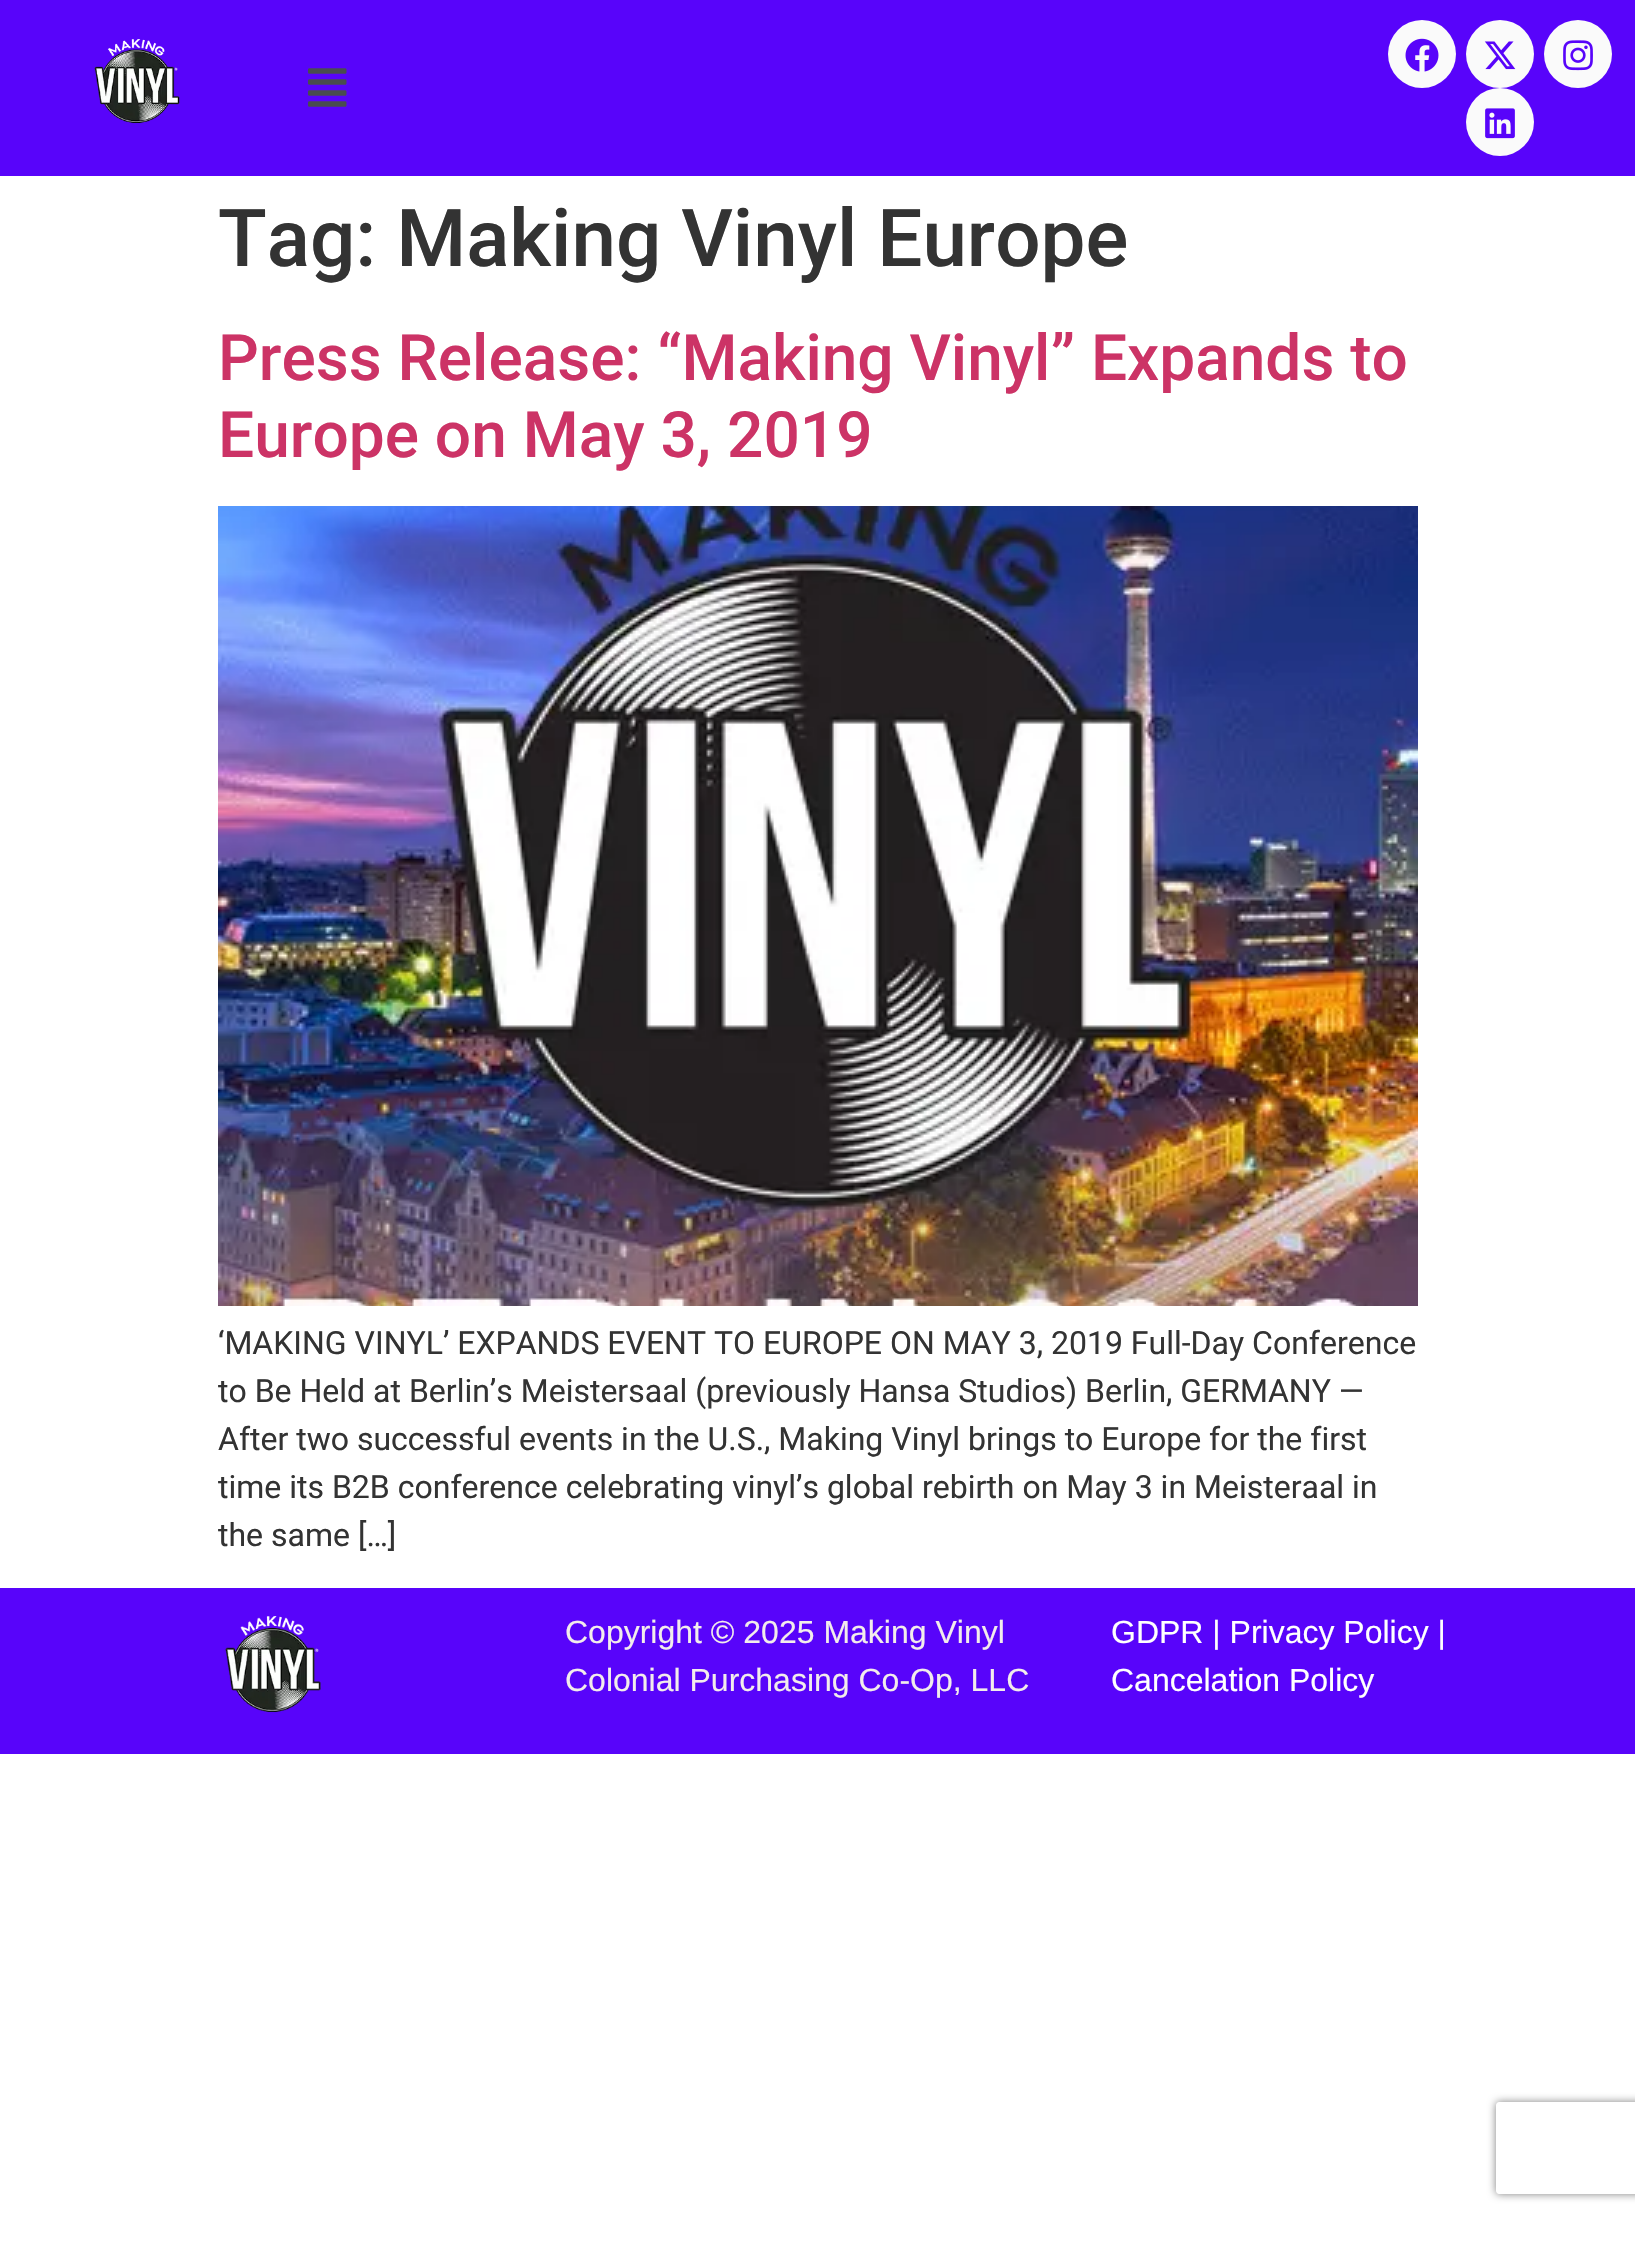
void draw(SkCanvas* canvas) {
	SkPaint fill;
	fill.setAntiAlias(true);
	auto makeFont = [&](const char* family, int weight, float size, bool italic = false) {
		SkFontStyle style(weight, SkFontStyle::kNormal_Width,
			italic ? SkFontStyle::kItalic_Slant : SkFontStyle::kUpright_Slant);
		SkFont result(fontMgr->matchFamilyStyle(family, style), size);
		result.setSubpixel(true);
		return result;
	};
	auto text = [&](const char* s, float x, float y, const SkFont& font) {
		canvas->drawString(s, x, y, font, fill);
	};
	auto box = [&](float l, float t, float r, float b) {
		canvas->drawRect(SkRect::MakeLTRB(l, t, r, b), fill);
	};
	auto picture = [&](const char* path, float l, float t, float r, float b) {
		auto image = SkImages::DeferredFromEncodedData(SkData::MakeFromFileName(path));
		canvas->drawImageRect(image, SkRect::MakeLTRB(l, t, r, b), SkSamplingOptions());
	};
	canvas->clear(0xFFFFFFFF);
	fill.setColor(0xFF5804FA);
	box(0, 0, 1635, 176);
	picture("image0.png", 94, 39, 180, 123);
	picture("image1.png", 308, 68, 347, 107);
	fill.setColor(0xFFFAFAFA);
	canvas->drawCircle(1422, 54, 34, fill);
	picture("image2.png", 1405, 38, 1439, 72);
	canvas->drawCircle(1500, 54, 34, fill);
	picture("image3.png", 1484, 41, 1516, 70);
	canvas->drawCircle(1578, 54, 34, fill);
	picture("image4.png", 1563, 40, 1593, 71);
	canvas->drawCircle(1500, 122, 34, fill);
	picture("image5.png", 1485, 108, 1515, 139);
	picture("image6.png", 218, 506, 1418, 1306);
	fill.setColor(0xFF5804FA);
	box(0, 1588, 1635, 1754);
	picture("image7.png", 225, 1616, 321, 1712);
	canvas->save();
	canvas->clipPath(SkPathBuilder(SkPathFillType::kEvenOdd).moveTo(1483, 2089).lineTo(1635, 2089).lineTo(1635, 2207).lineTo(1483, 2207).close().moveTo(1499, 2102).lineTo(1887, 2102).cubicTo(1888.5f, 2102, 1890, 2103.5f, 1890, 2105).lineTo(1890, 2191).cubicTo(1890, 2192.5f, 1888.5f, 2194, 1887, 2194).lineTo(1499, 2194).cubicTo(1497.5f, 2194, 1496, 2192.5f, 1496, 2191).lineTo(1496, 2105).cubicTo(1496, 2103.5f, 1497.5f, 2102, 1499, 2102).close().detach(), true);
	fill.setColor(0xFF808080);
	fill.setMaskFilter(SkMaskFilter::MakeBlur(kNormal_SkBlurStyle, 4));
	canvas->drawRoundRect(SkRect::MakeLTRB(1496, 2102, 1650, 2194), 3, 3, fill);
	fill.setMaskFilter(nullptr);
	canvas->restore();
	auto font1 = makeFont("Roboto", 500, 80);
	fill.setColor(0xFF333333);
	text("Tag: Making Vinyl Europe", 218, 266, font1);
	auto font2 = makeFont("Roboto", 500, 64);
	fill.setColor(0xFFCC3366);
	text("Press Release: “Making Vinyl” Expands to", 218, 380, font2);
	text("Europe on May 3, 2019", 218, 457, font2);
	auto font3 = makeFont("Roboto", 400, 32);
	fill.setColor(0xFF333333);
	text("‘MAKING VINYL’ EXPANDS EVENT TO EUROPE ON MAY 3, 2019 Full-Day Conference", 218, 1354, font3);
	text("to Be Held at Berlin’s Meistersaal (previously Hansa Studios) Berlin, GERMANY —", 218, 1402, font3);
	text("After two successful events in the U.S., Making Vinyl brings to Europe for the first", 218, 1450, font3);
	text("time its B2B conference celebrating vinyl’s global rebirth on May 3 in Meisteraal in", 218, 1498, font3);
	text("the same […]", 218, 1546, font3);
	auto font4 = makeFont("Liberation Sans", 400, 32);
	fill.setColor(0xFFF3ECEC);
	text("Copyright © 2025 Making Vinyl", 565, 1643, font4);
	text("Colonial Purchasing Co-Op, LLC", 565, 1691, font4);
	fill.setColor(0xFFFFFFFF);
	text("GDPR | Privacy Policy |", 1111, 1643, font4);
	text("Cancelation Policy", 1111, 1691, font4);
}
